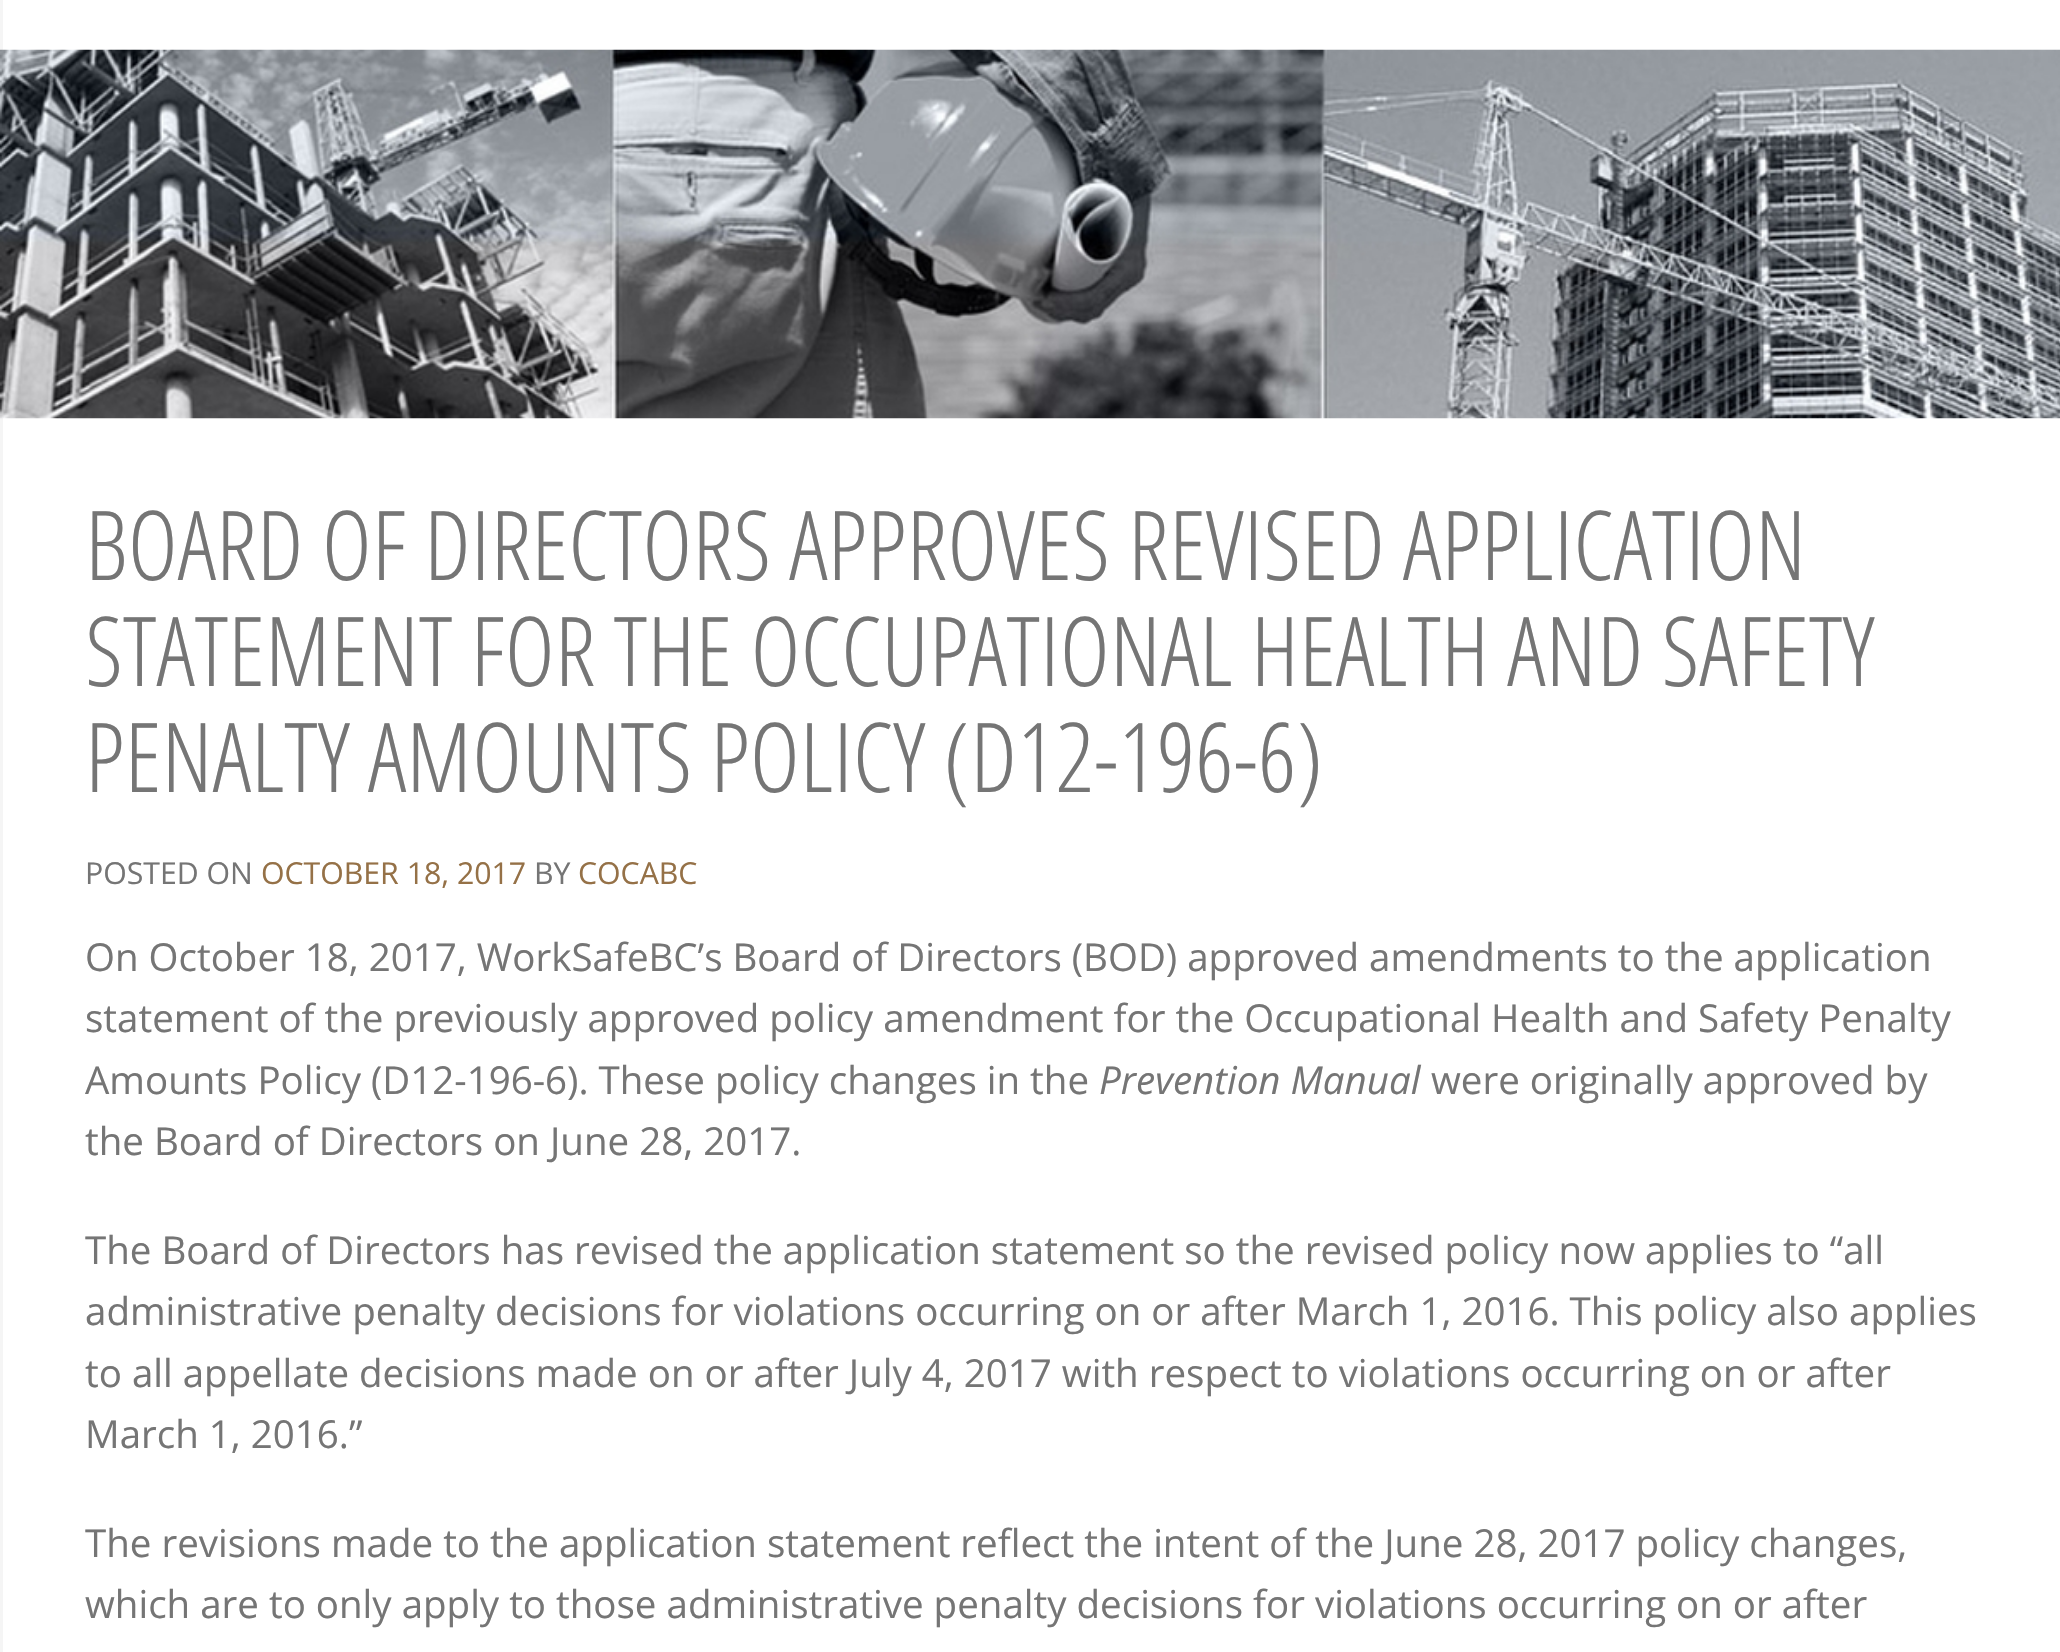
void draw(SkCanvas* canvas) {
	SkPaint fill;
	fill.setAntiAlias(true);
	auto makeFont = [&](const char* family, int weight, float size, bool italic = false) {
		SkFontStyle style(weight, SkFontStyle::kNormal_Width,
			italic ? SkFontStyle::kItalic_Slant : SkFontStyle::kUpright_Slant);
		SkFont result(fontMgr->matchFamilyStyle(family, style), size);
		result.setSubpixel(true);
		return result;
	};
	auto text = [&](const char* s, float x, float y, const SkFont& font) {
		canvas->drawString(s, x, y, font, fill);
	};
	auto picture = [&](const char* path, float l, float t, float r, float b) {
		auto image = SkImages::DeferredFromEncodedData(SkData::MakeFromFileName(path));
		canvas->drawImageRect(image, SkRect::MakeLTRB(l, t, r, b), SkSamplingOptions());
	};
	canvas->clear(0xFFFFFFFF);
	fill.setStyle(SkPaint::kStroke_Style);
	fill.setStrokeWidth(3);
	fill.setColor(0xFFF5F5F5);
	canvas->drawRect(SkRect::MakeLTRB(1.5f, -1.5f, 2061.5f, 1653.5f), fill);
	picture("image0.png", 0, 49, 2060, 419);
	auto font1 = makeFont("Open Sans Condensed", 300, 96.25f);
	fill.setStyle(SkPaint::kFill_Style);
	fill.setColor(0xFF757575);
	text("BOARD OF DIRECTORS APPROVES REVISED APPLICATION", 85, 580, font1);
	text("STATEMENT FOR THE OCCUPATIONAL HEALTH AND SAFETY", 85, 686, font1);
	text("PENALTY AMOUNTS POLICY (D12-196-6)", 85, 792, font1);
	auto font2 = makeFont("Open Sans", 400, 30.25f);
	text("POSTED ON", 85, 884, font2);
	fill.setColor(0xFF957147);
	text("OCTOBER 18, 2017", 261, 884, font2);
	fill.setColor(0xFF757575);
	text("BY", 534, 884, font2);
	fill.setColor(0xFF957147);
	text("COCABC", 578, 884, font2);
	auto font3 = makeFont("Open Sans", 400, 38.5f);
	fill.setColor(0xFF757575);
	text("On October 18, 2017, WorkSafeBC’s Board of Directors (BOD) approved amendments to the application", 85, 971, font3);
	text("statement of the previously approved policy amendment for the Occupational Health and Safety Penalty", 85, 1032, font3);
	text("Amounts Policy (D12-196-6). These policy changes in the", 85, 1094, font3);
	auto font4 = makeFont("Open Sans", 400, 38.5f, true);
	text("Prevention Manual", 1099, 1094, font4);
	text("were originally approved by", 1431, 1094, font3);
	text("the Board of Directors on June 28, 2017.", 85, 1155, font3);
	text("The Board of Directors has revised the application statement so the revised policy now applies to “all", 85, 1264, font3);
	text("administrative penalty decisions for violations occurring on or after March 1, 2016. This policy also applies", 85, 1325, font3);
	text("to all appellate decisions made on or after July 4, 2017 with respect to violations occurring on or after", 85, 1387, font3);
	text("March 1, 2016.”", 85, 1448, font3);
	text("The revisions made to the application statement reflect the intent of the June 28, 2017 policy changes,", 85, 1557, font3);
	text("which are to only apply to those administrative penalty decisions for violations occurring on or after", 85, 1618, font3);
}
